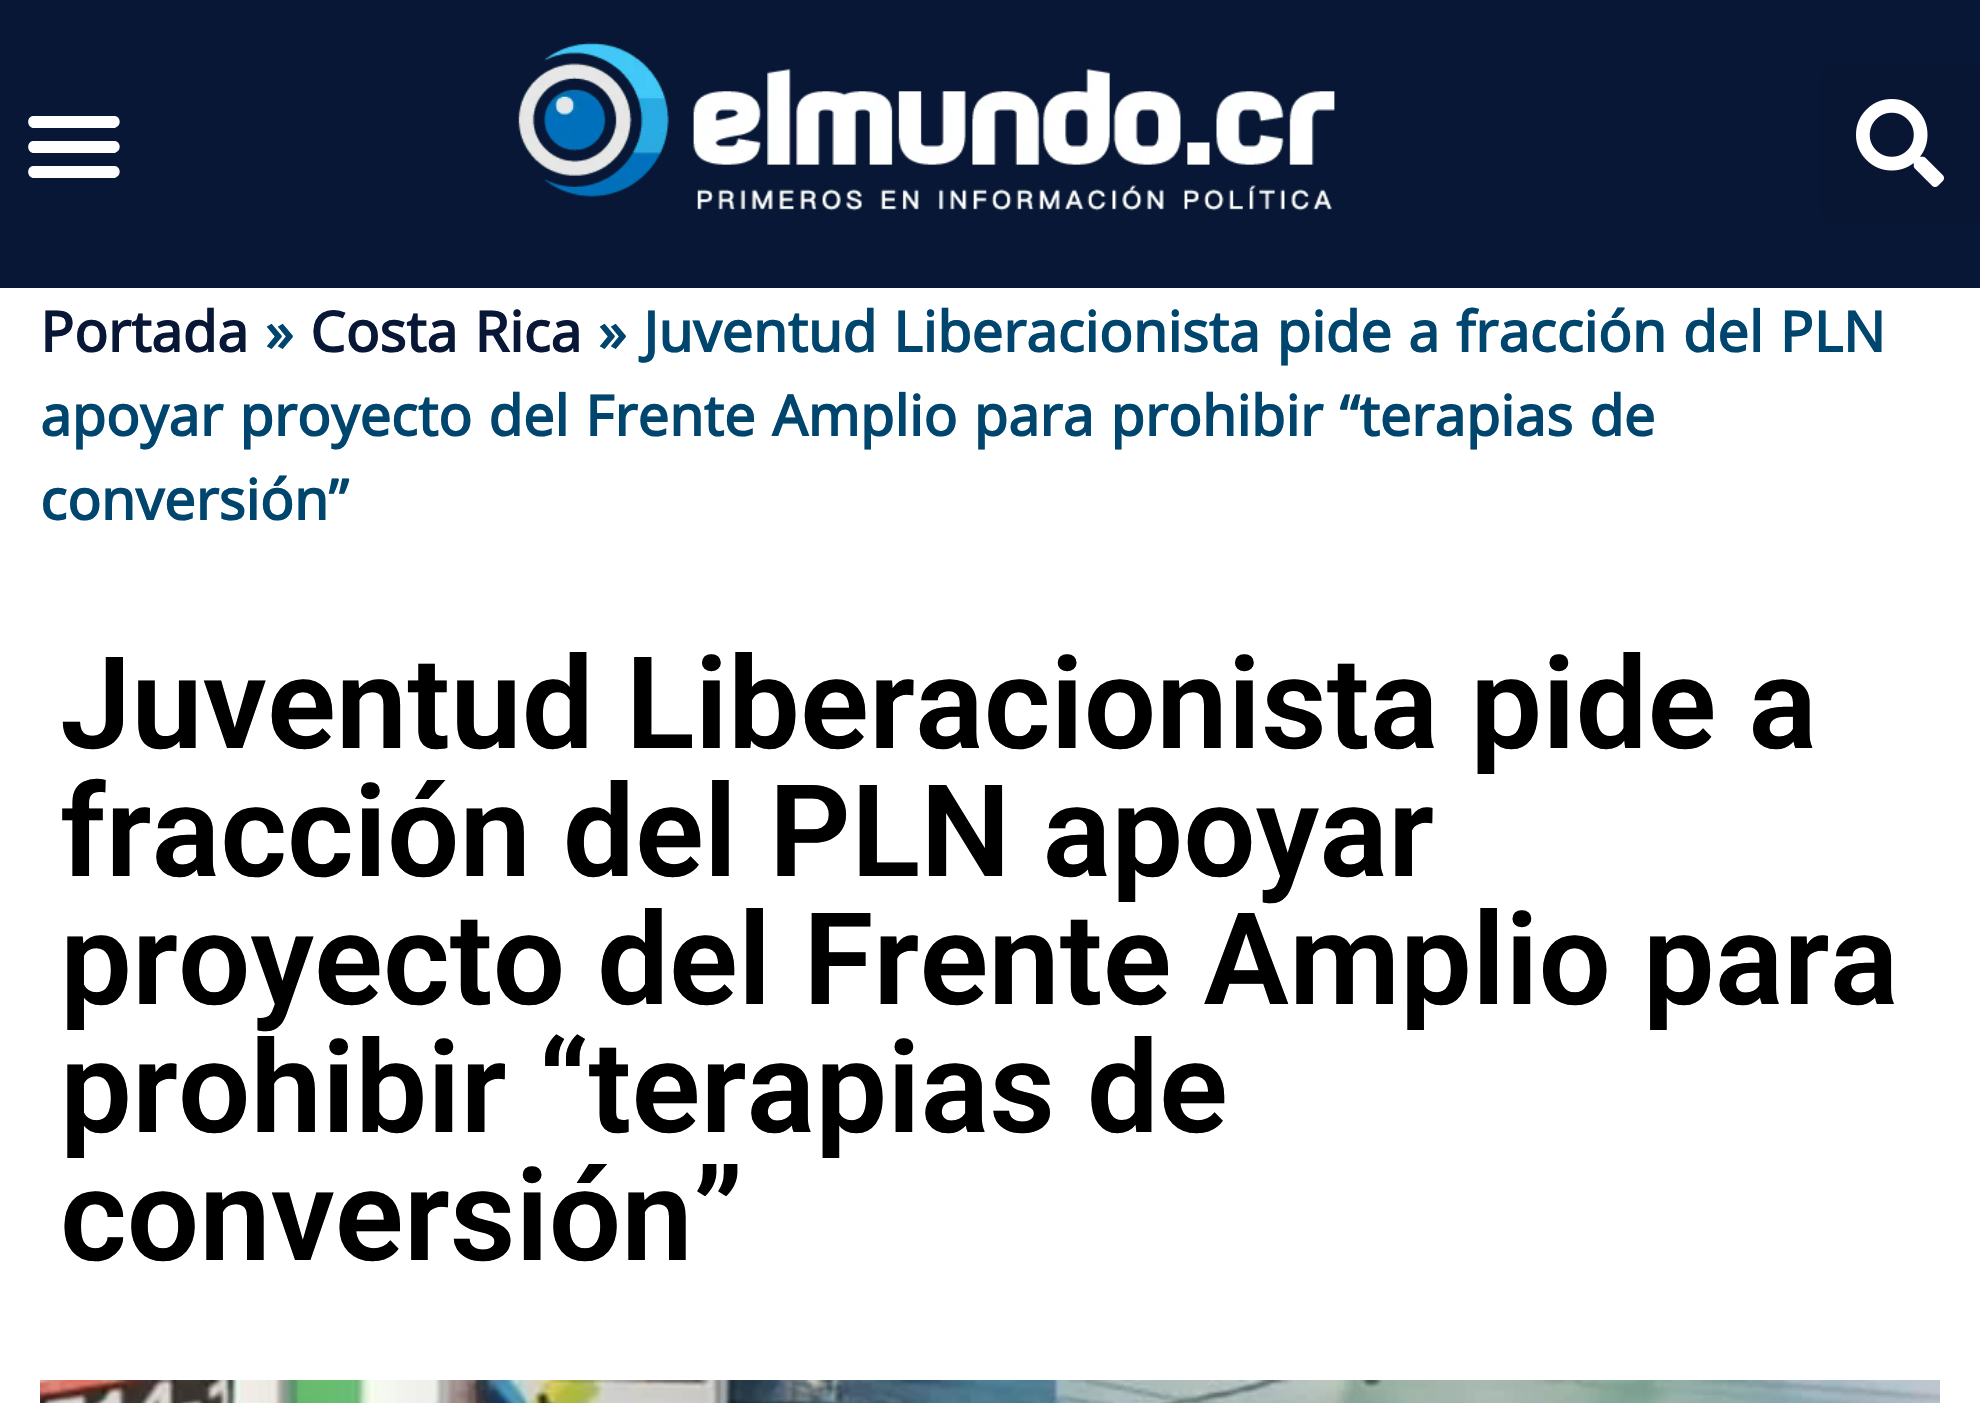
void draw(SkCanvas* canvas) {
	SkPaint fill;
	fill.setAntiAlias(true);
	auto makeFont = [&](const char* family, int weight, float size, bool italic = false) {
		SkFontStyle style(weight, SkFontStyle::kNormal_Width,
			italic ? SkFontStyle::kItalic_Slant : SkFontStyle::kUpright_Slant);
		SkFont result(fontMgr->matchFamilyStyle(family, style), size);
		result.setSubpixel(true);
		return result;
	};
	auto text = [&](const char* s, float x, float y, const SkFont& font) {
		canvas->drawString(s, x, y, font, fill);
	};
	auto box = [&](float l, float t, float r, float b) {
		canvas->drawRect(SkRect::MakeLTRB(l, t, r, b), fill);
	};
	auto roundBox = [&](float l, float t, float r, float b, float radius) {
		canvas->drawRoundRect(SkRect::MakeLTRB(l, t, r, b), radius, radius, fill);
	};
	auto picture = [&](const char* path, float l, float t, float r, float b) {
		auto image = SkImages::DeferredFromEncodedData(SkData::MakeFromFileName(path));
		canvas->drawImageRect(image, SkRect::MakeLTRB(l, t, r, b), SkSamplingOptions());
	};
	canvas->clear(0xFFFFFFFF);
	fill.setColor(0xFF081736);
	box(0, 0, 1980, 288);
	fill.setColor(0xFFFFFFFF);
	canvas->drawPath(SkPathBuilder().moveTo(34, 128).lineTo(115, 128).lineTo(118, 126).cubicTo(121, 123, 120, 117, 115, 116).lineTo(33, 116).cubicTo(26, 117, 27, 128, 34, 128).close().moveTo(34, 153).lineTo(115, 153).lineTo(118, 151).cubicTo(121, 148, 120, 142, 115, 141).lineTo(33, 141).cubicTo(26, 142, 27, 153, 34, 153).close().moveTo(34, 178).lineTo(115, 178).lineTo(118, 176).cubicTo(121, 173, 120, 167, 115, 166).lineTo(33, 166).cubicTo(26, 167, 27, 178, 34, 178).close().detach(), fill);
	picture("image0.png", 518, 42, 1335, 211);
	fill.setColor(0xFF081633);
	roundBox(1820, 64, 1980, 224, 12);
	picture("image1.png", 1856, 99, 1944, 187);
	picture("image2.png", 40, 1380, 1940, 1403);
	auto font1 = makeFont("Noto Sans Osmanya", 700, 56);
	fill.setColor(0xFF081736);
	text("Portada", 40, 352, font1);
	fill.setColor(0xFF00456E);
	text("»", 265, 352, font1);
	fill.setColor(0xFF081736);
	text("Costa Rica", 310, 352, font1);
	fill.setColor(0xFF00456E);
	text("» Juventud Liberacionista pide a fracción del PLN", 598, 352, font1);
	text("apoyar proyecto del Frente Amplio para prohibir “terapias de", 40, 436, font1);
	text("conversión”", 40, 520, font1);
	auto font2 = makeFont("Roboto", 600, 128);
	fill.setColor(0xFF000000);
	text("Juventud Liberacionista pide a", 60, 748, font2);
	text("fracción del PLN apoyar", 60, 876, font2);
	text("proyecto del Frente Amplio para", 60, 1004, font2);
	text("prohibir “terapias de", 60, 1132, font2);
	text("conversión”", 60, 1260, font2);
}
